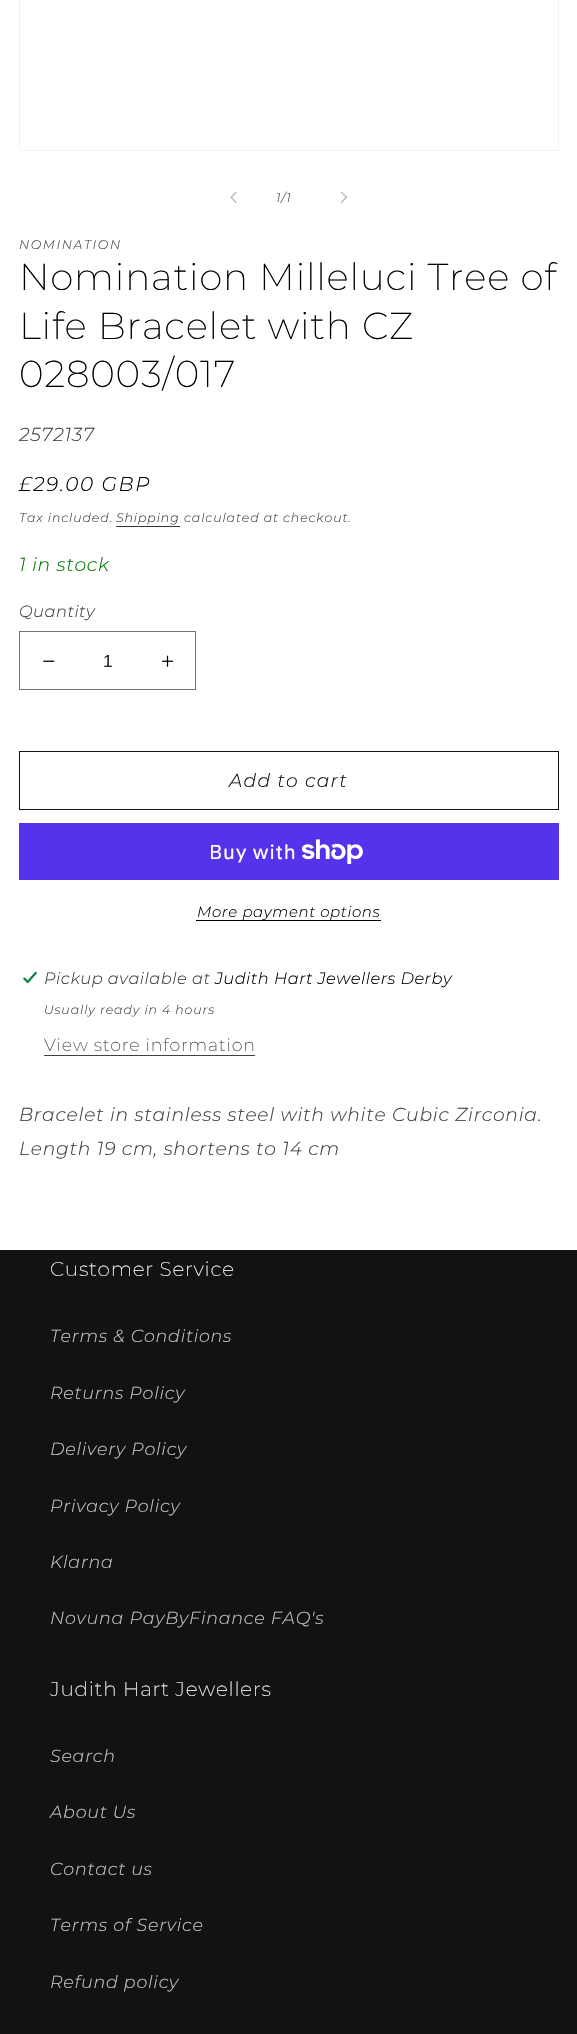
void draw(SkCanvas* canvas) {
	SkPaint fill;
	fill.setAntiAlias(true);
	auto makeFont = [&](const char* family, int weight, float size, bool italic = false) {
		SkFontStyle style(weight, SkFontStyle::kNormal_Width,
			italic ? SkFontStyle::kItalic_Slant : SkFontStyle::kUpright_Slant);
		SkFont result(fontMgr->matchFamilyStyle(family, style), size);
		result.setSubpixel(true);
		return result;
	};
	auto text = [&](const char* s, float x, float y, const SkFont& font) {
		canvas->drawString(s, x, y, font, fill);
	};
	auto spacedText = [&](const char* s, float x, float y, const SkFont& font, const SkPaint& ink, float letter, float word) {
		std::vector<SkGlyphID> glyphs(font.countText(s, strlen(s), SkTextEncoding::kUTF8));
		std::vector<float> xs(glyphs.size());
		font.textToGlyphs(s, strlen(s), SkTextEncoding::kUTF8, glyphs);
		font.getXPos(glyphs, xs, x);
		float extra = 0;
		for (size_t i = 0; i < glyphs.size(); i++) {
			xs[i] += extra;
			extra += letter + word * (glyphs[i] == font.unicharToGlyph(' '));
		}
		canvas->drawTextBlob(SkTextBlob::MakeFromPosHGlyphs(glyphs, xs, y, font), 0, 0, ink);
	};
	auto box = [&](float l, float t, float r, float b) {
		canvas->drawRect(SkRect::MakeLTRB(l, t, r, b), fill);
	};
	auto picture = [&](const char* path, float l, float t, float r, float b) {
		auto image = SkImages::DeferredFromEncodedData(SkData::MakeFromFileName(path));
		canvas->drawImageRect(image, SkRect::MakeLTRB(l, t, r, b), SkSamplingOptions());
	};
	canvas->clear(0xFFFFFFFF);
	fill.setStyle(SkPaint::kStroke_Style);
	fill.setStrokeWidth(1);
	fill.setColor(0xFFF2F2F2);
	canvas->drawRect(SkRect::MakeLTRB(19.5f, -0.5f, 558.5f, 150.5f), fill);
	picture("image0.png", 230, 191, 237, 203);
	picture("image1.png", 340, 191, 347, 203);
	fill.setStyle(SkPaint::kFill_Style);
	fill.setColor(0xFF363636);
	box(116, 526, 180, 527);
	picture("image2.png", 43, 660, 55, 662);
	picture("image3.png", 161, 655, 174, 667);
	fill.setStyle(SkPaint::kStroke_Style);
	fill.setColor(0xFF737373);
	canvas->drawRect(SkRect::MakeLTRB(19.5f, 631.5f, 195.5f, 689.5f), fill);
	fill.setColor(0xFF121212);
	canvas->drawRect(SkRect::MakeLTRB(19.5f, 751.5f, 558.5f, 809.5f), fill);
	fill.setStyle(SkPaint::kFill_Style);
	fill.setColor(0xFF5433EB);
	box(19, 823, 559, 880);
	picture("image4.png", 301, 839, 363, 864);
	fill.setColor(0xFF000000);
	box(196, 920, 381, 921);
	picture("image5.png", 22, 971, 38, 984);
	fill.setColor(0xFF404040);
	box(44, 1055, 255, 1056);
	fill.setColor(0xFF121212);
	box(0, 1250, 577, 2034);
	auto font1 = makeFont("Montserrat", 300, 12.5f, true);
	fill.setColor(0xFF404040);
	spacedText("1/1", 276, 202, font1, fill, 0.9f, 0);
	spacedText("NOMINATION", 19, 249, font1, fill, 1.6f, 0);
	auto font2 = makeFont("Montserrat", 200, 37.5f);
	fill.setColor(0xFF000000);
	spacedText("Nomination Milleluci Tree of", 19, 290, font2, fill, 0.75f, 0);
	spacedText("Life Bracelet with CZ", 19, 339, font2, fill, 0.75f, 0);
	spacedText("028003/017", 19, 387, font2, fill, 0.75f, 0);
	auto font3 = makeFont("Montserrat", 300, 18.75f, true);
	fill.setColor(0xFF404040);
	spacedText("2572137", 19, 441, font3, fill, 0.75f, 0);
	auto font4 = makeFont("Montserrat", 300, 20, true);
	fill.setColor(0xFF000000);
	spacedText("£29.00 GBP", 19, 491, font4, fill, 1.6f, 0);
	fill.setColor(0xFF404040);
	spacedText("Tax included.", 19, 522, font1, fill, 0.9f, 0);
	fill.setColor(0xFF363636);
	spacedText("Shipping", 116, 522, font1, fill, 0.9f, 0);
	fill.setColor(0xFF404040);
	spacedText("calculated at checkout.", 184, 522, font1, fill, 0.9f, 0);
	fill.setColor(0xFF027800);
	spacedText("1 in stock", 19, 571, font3, fill, 0.75f, 0);
	auto font5 = makeFont("Montserrat", 300, 16.25f, true);
	fill.setColor(0xFF404040);
	spacedText("Quantity", 19, 617, font5, fill, 0.5f, 0);
	auto font6 = makeFont("Liberation Sans", 400, 17.5f);
	fill.setColor(0xFF262626);
	text("1", 103, 667, font6);
	fill.setColor(0xFF121212);
	spacedText("Add to cart", 229, 787, font3, fill, 1.25f, 0);
	auto font7 = makeFont("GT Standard", 400, 20);
	fill.setColor(0xFFFFFFFF);
	spacedText("Buy with", 209, 859, font7, fill, 0.75f, 0);
	auto font8 = makeFont("Montserrat", 300, 15, true);
	fill.setColor(0xFF000000);
	spacedText("More payment options", 197, 917, font8, fill, 0.6f, 0);
	fill.setColor(0xFF404040);
	spacedText("Pickup available at", 44, 984, font5, fill, 0.5f, 0);
	fill.setColor(0xFF000000);
	spacedText("Judith Hart Jewellers Derby", 215, 984, font5, fill, 0.5f, 0);
	fill.setColor(0xFF404040);
	spacedText("Usually ready in 4 hours", 44, 1014, font1, fill, 0.9f, 0);
	auto font9 = makeFont("Montserrat", 200, 17.5f);
	spacedText("View store information", 44, 1051, font9, fill, 0.75f, 0);
	spacedText("Bracelet in stainless steel with white Cubic Zirconia.", 19, 1121, font3, fill, 0.75f, 0);
	spacedText("Length 19 cm, shortens to 14 cm", 19, 1155, font3, fill, 0.75f, 0);
	auto font10 = makeFont("Montserrat", 200, 20);
	fill.setColor(0xFFFFFFFF);
	spacedText("Customer Service", 50, 1276, font10, fill, 0.75f, 0);
	auto font11 = makeFont("Montserrat", 300, 17.5f, true);
	fill.setColor(0xFFC4C4C4);
	spacedText("Terms & Conditions", 50, 1342, font11, fill, 0.75f, 0);
	spacedText("Returns Policy", 50, 1399, font11, fill, 0.75f, 0);
	spacedText("Delivery Policy", 50, 1455, font11, fill, 0.75f, 0);
	spacedText("Privacy Policy", 50, 1512, font11, fill, 0.75f, 0);
	spacedText("Klarna", 50, 1568, font11, fill, 0.75f, 0);
	spacedText("Novuna PayByFinance FAQ's", 50, 1624, font11, fill, 0.75f, 0);
	fill.setColor(0xFFFFFFFF);
	spacedText("Judith Hart Jewellers", 50, 1696, font10, fill, 0.75f, 0);
	fill.setColor(0xFFC4C4C4);
	spacedText("Search", 50, 1762, font11, fill, 0.75f, 0);
	spacedText("About Us", 50, 1818, font11, fill, 0.75f, 0);
	spacedText("Contact us", 50, 1875, font11, fill, 0.75f, 0);
	spacedText("Terms of Service", 50, 1931, font11, fill, 0.75f, 0);
	spacedText("Refund policy", 50, 1988, font11, fill, 0.75f, 0);
}
